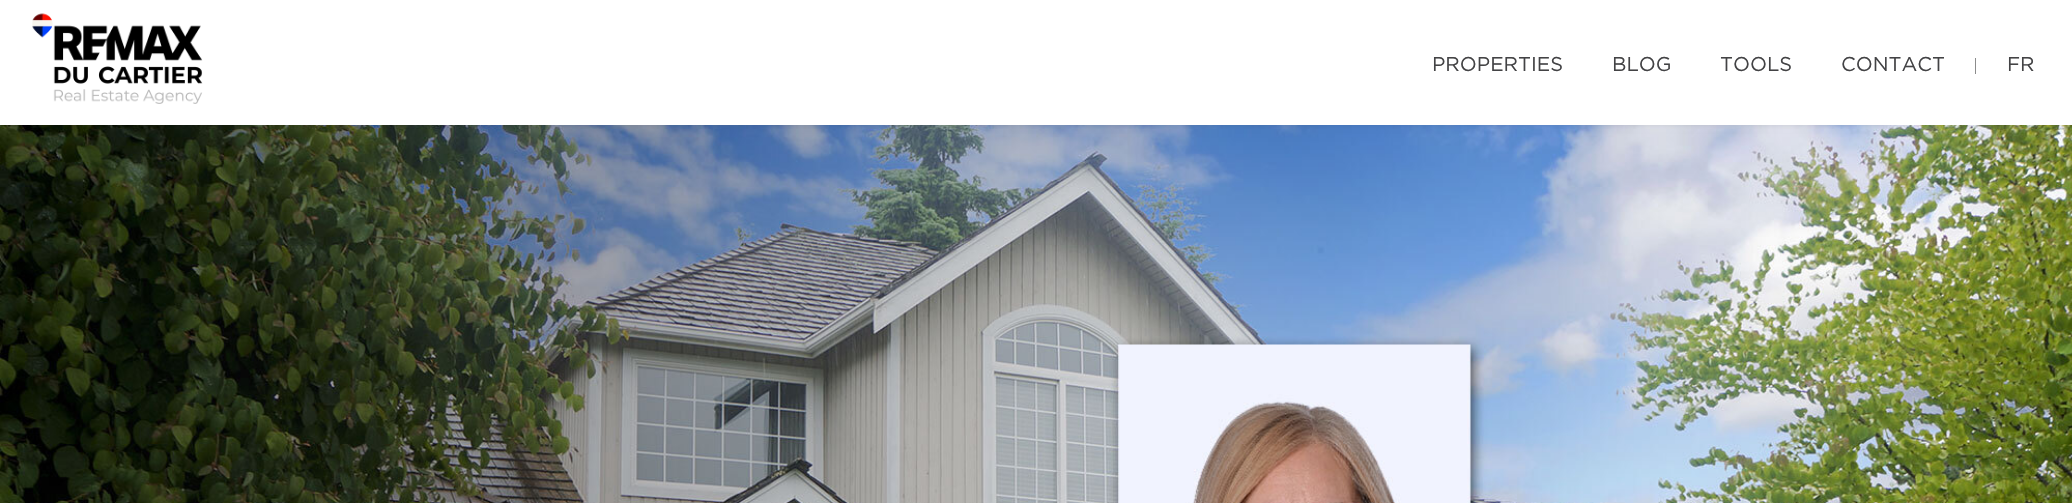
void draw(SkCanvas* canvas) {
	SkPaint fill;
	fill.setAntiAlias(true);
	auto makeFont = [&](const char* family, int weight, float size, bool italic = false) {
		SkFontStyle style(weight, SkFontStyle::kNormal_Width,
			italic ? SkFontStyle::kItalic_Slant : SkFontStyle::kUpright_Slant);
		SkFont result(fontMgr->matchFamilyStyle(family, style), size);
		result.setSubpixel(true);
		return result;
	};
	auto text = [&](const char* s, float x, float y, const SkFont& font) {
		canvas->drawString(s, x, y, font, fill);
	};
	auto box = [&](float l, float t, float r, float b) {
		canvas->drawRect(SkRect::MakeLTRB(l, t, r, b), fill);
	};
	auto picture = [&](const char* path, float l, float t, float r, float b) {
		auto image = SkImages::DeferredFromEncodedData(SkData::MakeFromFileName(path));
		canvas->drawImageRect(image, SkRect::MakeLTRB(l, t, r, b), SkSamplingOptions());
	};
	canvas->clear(0xFFFFFFFF);
	picture("image1.png", 0, 125, 2072, 503);
	fill.setColor(0x1A000000);
	fill.setMaskFilter(SkMaskFilter::MakeBlur(kNormal_SkBlurStyle, 3));
	canvas->drawRect(SkRect::MakeLTRB(-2, 0, 2070, 125), fill);
	fill.setMaskFilter(nullptr);
	fill.setColor(0xFFFFFFFF);
	box(0, 0, 2072, 125);
	picture("image0.png", 32, 13, 203, 104);
	fill.setColor(0xFF8C8C8C);
	box(1975, 58, 1976, 74);
	auto font1 = makeFont("Gotham", 400, 20);
	fill.setColor(0xFF434345);
	text("PROPERTIES", 1432, 71, font1);
	text("BLOG", 1612, 71, font1);
	text("TOOLS", 1720, 71, font1);
	text("CONTACT", 1841, 71, font1);
	text("FR", 2007, 71, font1);
}
